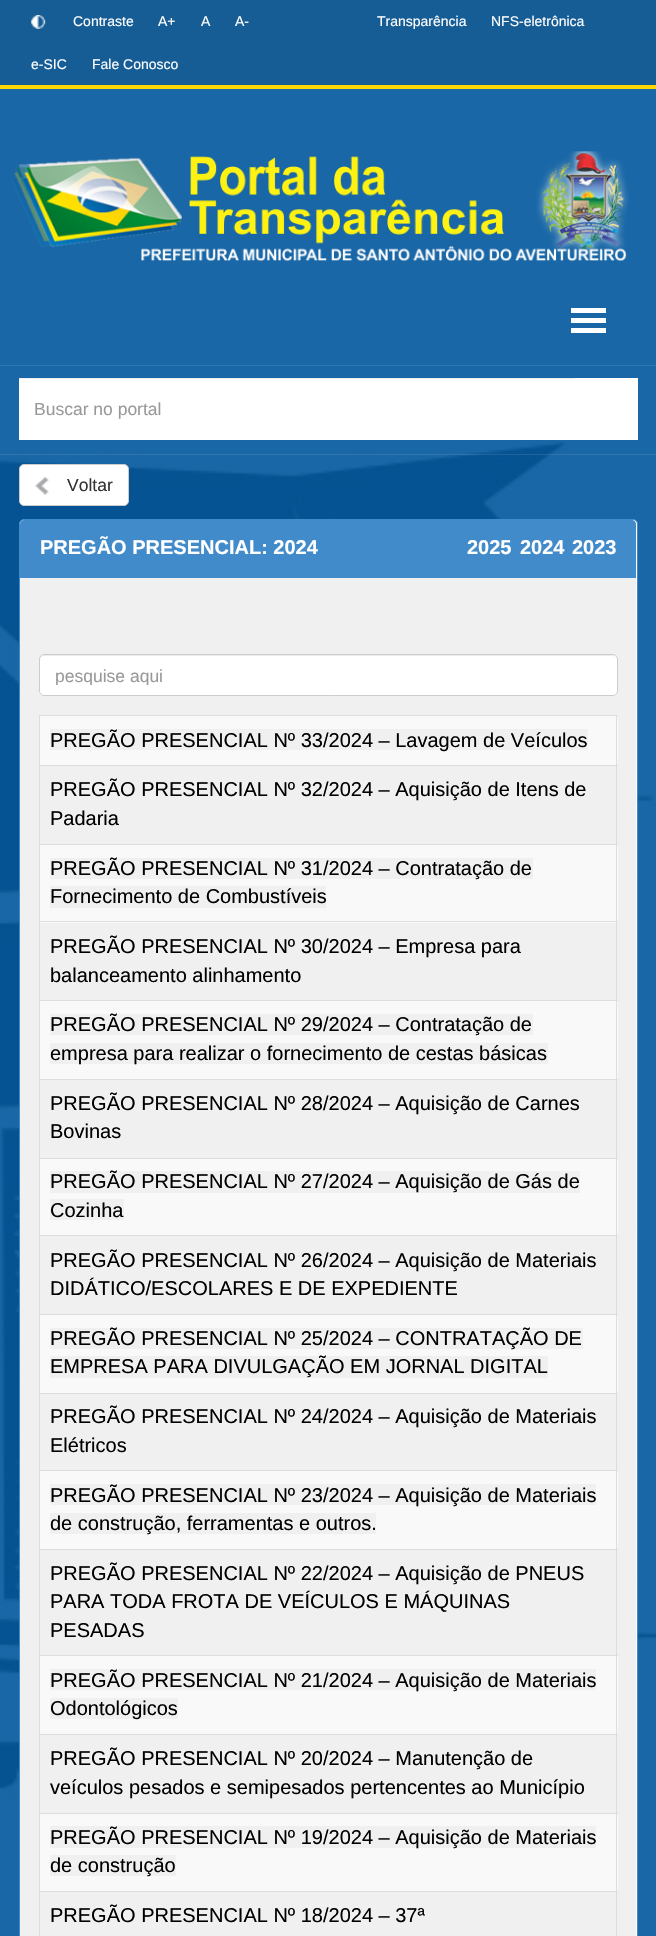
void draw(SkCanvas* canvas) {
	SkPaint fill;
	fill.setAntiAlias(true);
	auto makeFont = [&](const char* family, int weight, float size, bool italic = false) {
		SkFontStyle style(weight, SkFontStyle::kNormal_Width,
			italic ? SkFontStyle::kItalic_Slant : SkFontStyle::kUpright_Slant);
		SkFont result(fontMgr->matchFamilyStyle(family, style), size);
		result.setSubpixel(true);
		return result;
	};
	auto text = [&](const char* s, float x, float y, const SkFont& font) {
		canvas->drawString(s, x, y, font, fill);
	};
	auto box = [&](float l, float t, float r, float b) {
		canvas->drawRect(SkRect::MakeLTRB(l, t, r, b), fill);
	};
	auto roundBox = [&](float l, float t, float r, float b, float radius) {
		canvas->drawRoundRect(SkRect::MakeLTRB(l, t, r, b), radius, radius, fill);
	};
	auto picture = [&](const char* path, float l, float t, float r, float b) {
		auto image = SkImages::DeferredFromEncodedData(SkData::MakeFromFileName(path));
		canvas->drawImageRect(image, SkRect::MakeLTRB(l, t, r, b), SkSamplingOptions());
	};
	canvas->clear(0xFF1967A6);
	picture("image0.png", 0, 430, 656, 1801);
	fill.setColor(0xFF175D95);
	box(0, 0, 656, 85);
	fill.setColor(0xFFFFD700);
	box(0, 85, 656, 89);
	picture("image1.png", 31, 15, 46, 29);
	picture("image2.png", 11, 151, 629, 262);
	fill.setColor(0xFFFFFFFF);
	box(571, 308, 606, 313);
	box(571, 318, 606, 323);
	box(571, 328, 606, 333);
	fill.setColor(0x1AFFFFFF);
	box(0, 454, 656, 455);
	fill.setColor(0xFF3076AF);
	box(0, 365, 656, 366);
	fill.setColor(0xFFFFFFFF);
	box(19, 379, 575, 440);
	fill.setColor(0xFFECECEC);
	box(19, 378, 575, 379);
	fill.setColor(0xFFFFFFFF);
	box(575, 378, 638, 440);
	canvas->drawRoundRect(SkRect::MakeLTRB(19.5f, 464.5f, 128.5f, 505.5f), 4.5f, 4.5f, fill);
	fill.setStyle(SkPaint::kStroke_Style);
	fill.setStrokeWidth(1);
	fill.setColor(0xFFCCCCCC);
	canvas->drawRoundRect(SkRect::MakeLTRB(19.5f, 464.5f, 128.5f, 505.5f), 4.5f, 4.5f, fill);
	picture("image3.png", 35, 477, 49, 495);
	fill.setStyle(SkPaint::kFill_Style);
	fill.setColor(0xFFFFFFFF);
	canvas->drawRoundRect(SkRect::MakeLTRB(19.5f, 519.5f, 637.5f, 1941.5f), 4.5f, 4.5f, fill);
	fill.setStyle(SkPaint::kStroke_Style);
	fill.setColor(0xFF428BCA);
	canvas->drawRoundRect(SkRect::MakeLTRB(19.5f, 519.5f, 637.5f, 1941.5f), 4.5f, 4.5f, fill);
	fill.setStyle(SkPaint::kFill_Style);
	canvas->drawPath(SkPathBuilder().moveTo(24, 520).lineTo(632, 520).cubicTo(634, 520, 636, 522, 636, 524).lineTo(636, 578).lineTo(20, 578).lineTo(20, 524).cubicTo(20, 522, 22, 520, 24, 520).close().detach(), fill);
	fill.setColor(0xFFF0F0F0);
	box(20, 578, 636, 1936);
	fill.setColor(0xFFFFFFFF);
	roundBox(39, 654, 618, 696, 5);
	fill.setColor(0xFFECECEC);
	canvas->drawPath(SkPathBuilder().moveTo(44, 656).lineTo(612, 656).cubicTo(615, 656, 616, 658, 616, 660).lineTo(616, 659).cubicTo(616, 657, 614, 655, 612, 655).lineTo(44, 655).cubicTo(42, 655, 40, 657, 40, 659).lineTo(40, 660).cubicTo(40, 658, 42, 656, 44, 656).close().detach(), fill);
	fill.setStyle(SkPaint::kStroke_Style);
	fill.setColor(0xFFCCCCCC);
	canvas->drawRoundRect(SkRect::MakeLTRB(39.5f, 654.5f, 617.5f, 695.5f), 4.5f, 4.5f, fill);
	fill.setStyle(SkPaint::kFill_Style);
	fill.setColor(0xFFDDDDDD);
	box(39, 715, 618, 716);
	fill.setColor(0xFFF9F9F9);
	box(40, 716, 618, 765);
	box(40, 845, 618, 923);
	box(40, 1001, 618, 1079);
	box(40, 1159, 618, 1235);
	box(40, 1315, 618, 1393);
	box(40, 1471, 618, 1549);
	box(40, 1656, 618, 1734);
	box(40, 1814, 618, 1891);
	fill.setColor(0xFFDDDDDD);
	box(616, 715, 617, 1936);
	box(39, 715, 40, 1936);
	fill.setColor(0xFFF0F0F0);
	box(50, 729, 588, 750);
	fill.setColor(0xFFDDDDDD);
	box(39, 765, 618, 766);
	box(39, 844, 618, 845);
	fill.setColor(0xFFF0F0F0);
	box(50, 858, 533, 879);
	box(50, 886, 326, 908);
	fill.setColor(0xFFDDDDDD);
	box(39, 921, 618, 922);
	box(39, 1000, 618, 1001);
	fill.setColor(0xFFF0F0F0);
	box(50, 1014, 533, 1035);
	box(50, 1043, 548, 1064);
	fill.setColor(0xFFDDDDDD);
	box(39, 1079, 618, 1080);
	box(39, 1158, 618, 1159);
	fill.setColor(0xFFF0F0F0);
	box(50, 1171, 580, 1193);
	box(50, 1199, 124, 1220);
	fill.setColor(0xFFDDDDDD);
	box(39, 1235, 618, 1236);
	box(39, 1314, 618, 1315);
	fill.setColor(0xFFF0F0F0);
	box(50, 1328, 583, 1349);
	box(50, 1356, 548, 1378);
	fill.setColor(0xFFDDDDDD);
	box(39, 1393, 618, 1394);
	box(39, 1470, 618, 1471);
	fill.setColor(0xFFF0F0F0);
	box(50, 1484, 596, 1505);
	box(50, 1513, 376, 1534);
	fill.setColor(0xFFDDDDDD);
	box(39, 1549, 618, 1550);
	box(39, 1655, 618, 1656);
	fill.setColor(0xFFF0F0F0);
	box(50, 1669, 596, 1690);
	box(50, 1698, 178, 1719);
	fill.setColor(0xFFDDDDDD);
	box(39, 1734, 618, 1735);
	box(39, 1813, 618, 1814);
	fill.setColor(0xFFF0F0F0);
	box(50, 1826, 596, 1848);
	box(50, 1855, 176, 1876);
	fill.setColor(0xFFDDDDDD);
	box(39, 1891, 618, 1892);
	auto font1 = makeFont("Liberation Sans", 400, 14);
	fill.setColor(0xFFFFFFFF);
	text("Contraste", 73, 26, font1);
	text("A+", 158, 26, font1);
	text("A", 201, 26, font1);
	text("A-", 235, 26, font1);
	text("Transparência", 377, 26, font1);
	text("NFS-eletrônica", 491, 26, font1);
	text("e-SIC", 31, 69, font1);
	text("Fale Conosco", 92, 69, font1);
	auto font2 = makeFont("Liberation Sans", 400, 17.5f);
	fill.setColor(0xFF999999);
	text("Buscar no portal", 34, 415, font2);
	fill.setColor(0xFF333333);
	text("Voltar", 67, 491, font2);
	auto font3 = makeFont("Liberation Sans", 700, 20);
	fill.setColor(0xFFFFFFFF);
	text("PREGÃO PRESENCIAL: 2024", 40, 554, font3);
	text("2025", 467, 554, font3);
	text("2024", 520, 554, font3);
	text("2023", 572, 554, font3);
	canvas->save();
	canvas->clipRect(SkRect::MakeLTRB(55, 665, 601, 685));
	fill.setColor(0xFF999999);
	text("pesquise aqui", 55, 682, font2);
	canvas->restore();
	auto font4 = makeFont("Liberation Sans", 400, 20);
	fill.setColor(0xFF000000);
	text("PREGÃO PRESENCIAL Nº 33/2024 – Lavagem de Veículos", 50, 747, font4);
	text("PREGÃO PRESENCIAL Nº 32/2024 – Aquisição de Itens de", 50, 796, font4);
	text("Padaria", 50, 825, font4);
	text("PREGÃO PRESENCIAL Nº 31/2024 – Contratação de", 50, 875, font4);
	text("Fornecimento de Combustíveis", 50, 903, font4);
	text("PREGÃO PRESENCIAL Nº 30/2024 – Empresa para", 50, 953, font4);
	text("balanceamento alinhamento", 50, 982, font4);
	text("PREGÃO PRESENCIAL Nº 29/2024 – Contratação de", 50, 1031, font4);
	text("empresa para realizar o fornecimento de cestas básicas", 50, 1060, font4);
	text("PREGÃO PRESENCIAL Nº 28/2024 – Aquisição de Carnes", 50, 1110, font4);
	text("Bovinas", 50, 1138, font4);
	text("PREGÃO PRESENCIAL Nº 27/2024 – Aquisição de Gás de", 50, 1188, font4);
	text("Cozinha", 50, 1217, font4);
	text("PREGÃO PRESENCIAL Nº 26/2024 – Aquisição de Materiais", 50, 1267, font4);
	text("DIDÁTICO/ESCOLARES E DE EXPEDIENTE", 50, 1295, font4);
	text("PREGÃO PRESENCIAL Nº 25/2024 – CONTRATAÇÃO DE", 50, 1345, font4);
	text("EMPRESA PARA DIVULGAÇÃO EM JORNAL DIGITAL", 50, 1373, font4);
	text("PREGÃO PRESENCIAL Nº 24/2024 – Aquisição de Materiais", 50, 1423, font4);
	text("Elétricos", 50, 1452, font4);
	text("PREGÃO PRESENCIAL Nº 23/2024 – Aquisição de Materiais", 50, 1502, font4);
	text("de construção, ferramentas e outros.", 50, 1530, font4);
	text("PREGÃO PRESENCIAL Nº 22/2024 – Aquisição de PNEUS", 50, 1580, font4);
	text("PARA TODA FROTA DE VEÍCULOS E MÁQUINAS", 50, 1608, font4);
	text("PESADAS", 50, 1637, font4);
	text("PREGÃO PRESENCIAL Nº 21/2024 – Aquisição de Materiais", 50, 1687, font4);
	text("Odontológicos", 50, 1715, font4);
	text("PREGÃO PRESENCIAL Nº 20/2024 – Manutenção de", 50, 1765, font4);
	text("veículos pesados e semipesados pertencentes ao Município", 50, 1794, font4);
	text("PREGÃO PRESENCIAL Nº 19/2024 – Aquisição de Materiais", 50, 1844, font4);
	text("de construção", 50, 1872, font4);
	text("PREGÃO PRESENCIAL Nº 18/2024 – 37ª", 50, 1922, font4);
}
